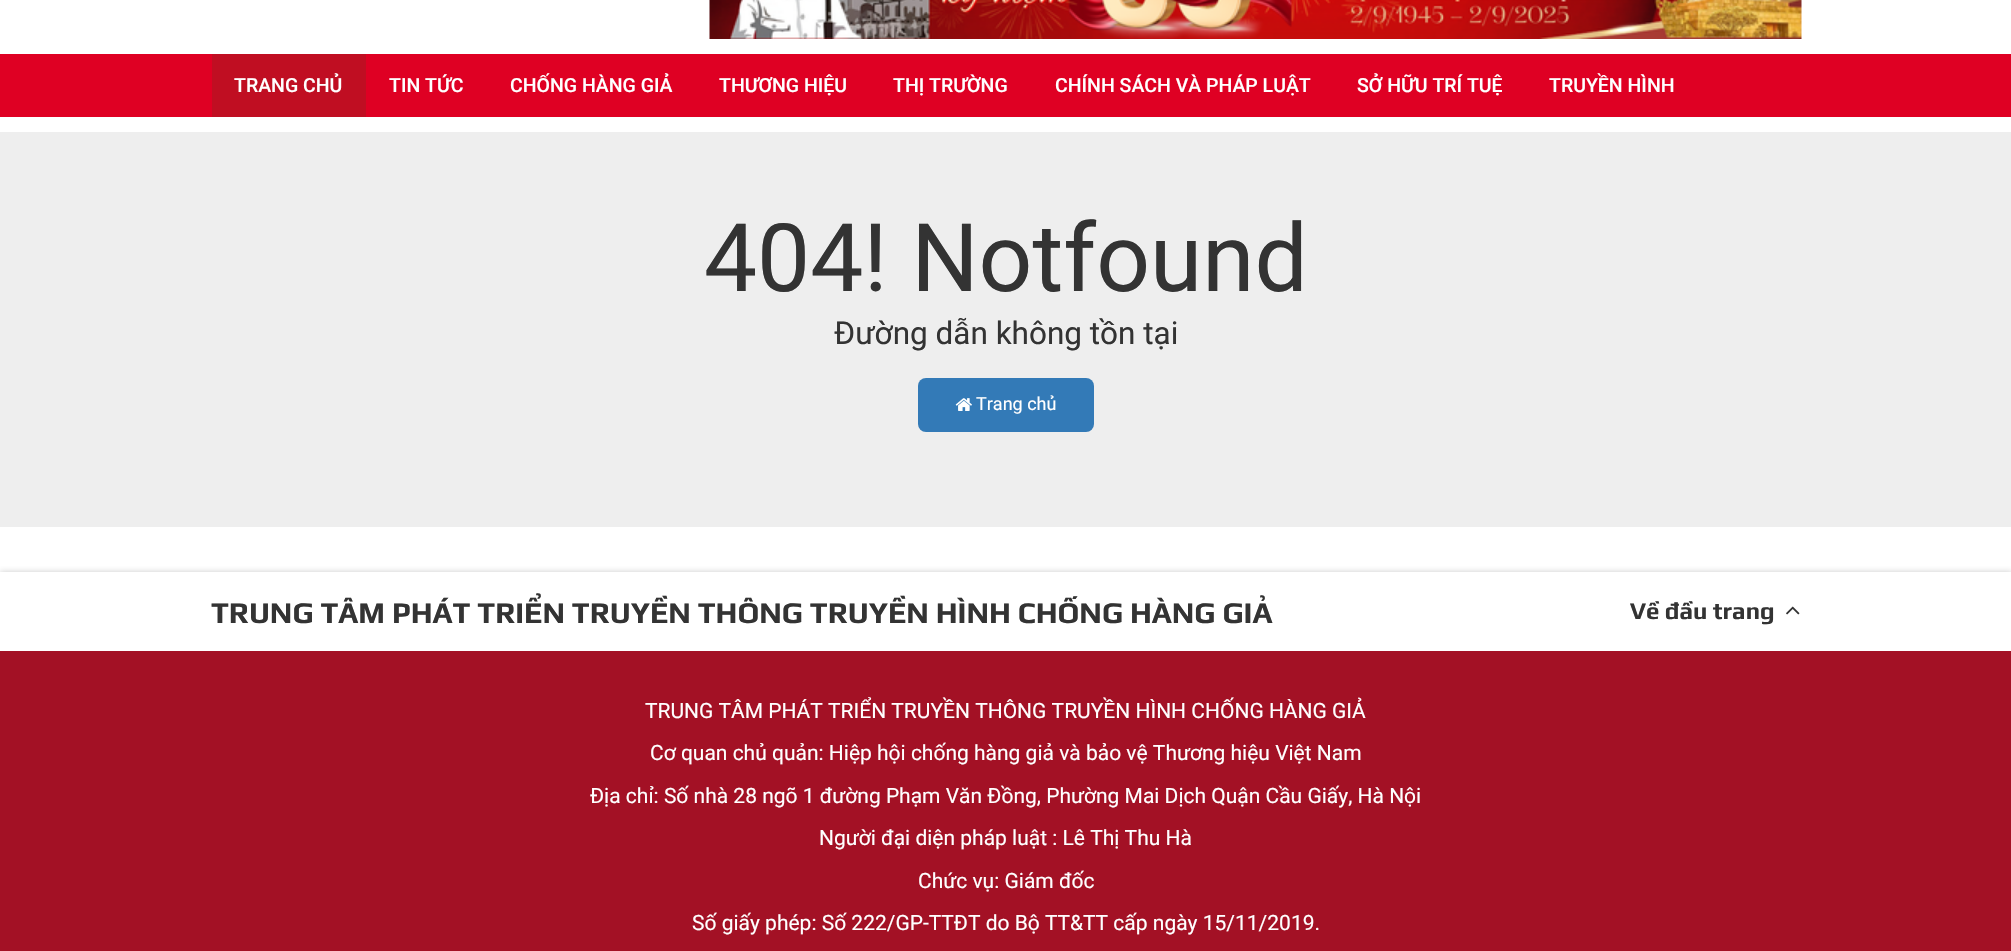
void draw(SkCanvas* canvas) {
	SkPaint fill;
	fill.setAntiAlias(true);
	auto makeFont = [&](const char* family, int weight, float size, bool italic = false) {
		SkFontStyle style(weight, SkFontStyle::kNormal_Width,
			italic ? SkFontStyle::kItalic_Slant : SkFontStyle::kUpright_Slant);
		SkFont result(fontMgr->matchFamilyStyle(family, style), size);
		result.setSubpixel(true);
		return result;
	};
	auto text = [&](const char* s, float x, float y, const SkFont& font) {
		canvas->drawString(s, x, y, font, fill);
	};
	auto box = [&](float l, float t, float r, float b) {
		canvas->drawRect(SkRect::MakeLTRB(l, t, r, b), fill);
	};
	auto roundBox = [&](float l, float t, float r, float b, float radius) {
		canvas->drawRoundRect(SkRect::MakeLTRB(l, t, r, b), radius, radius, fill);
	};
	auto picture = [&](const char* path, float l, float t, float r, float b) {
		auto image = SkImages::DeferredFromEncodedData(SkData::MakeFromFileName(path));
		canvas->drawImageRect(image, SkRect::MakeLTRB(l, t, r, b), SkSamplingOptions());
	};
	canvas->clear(0xFFFFFFFF);
	picture("image0.png", 709, 0, 1802, 39);
	fill.setColor(0xFFDF0023);
	box(0, 54, 2011, 117);
	fill.setColor(0xFFC00E22);
	box(212, 54, 366, 117);
	fill.setColor(0xFFEEEEEE);
	box(0, 132, 2011, 527);
	fill.setColor(0xFF337AB7);
	roundBox(918, 378, 1094, 432, 8);
	picture("image1.png", 955, 398, 972, 411);
	canvas->save();
	canvas->clipRect(SkRect::MakeLTRB(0, 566, 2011, 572));
	fill.setColor(0xFFCCCCCC);
	fill.setMaskFilter(SkMaskFilter::MakeBlur(kNormal_SkBlurStyle, 3));
	canvas->drawRect(SkRect::MakeLTRB(0, 572, 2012, 651), fill);
	fill.setMaskFilter(nullptr);
	canvas->restore();
	picture("image2.png", 1786, 606, 1800, 615);
	fill.setColor(0xFFA31125);
	box(0, 651, 2011, 951);
	auto font1 = makeFont("Roboto", 500, 19.5f);
	fill.setColor(0xFFFFFFFF);
	text("TRANG CHỦ", 234, 92, font1);
	text("TIN TỨC", 389, 92, font1);
	text("CHỐNG HÀNG GIẢ", 510, 92, font1);
	text("THƯƠNG HIỆU", 719, 92, font1);
	text("THỊ TRƯỜNG", 893, 92, font1);
	text("CHÍNH SÁCH VÀ PHÁP LUẬT", 1055, 92, font1);
	text("SỞ HỮU TRÍ TUỆ", 1357, 92, font1);
	text("TRUYỀN HÌNH", 1549, 92, font1);
	auto font2 = makeFont("Roboto", 400, 94.5f);
	fill.setColor(0xFF333333);
	text("404! Notfound", 704, 291, font2);
	auto font3 = makeFont("Roboto", 400, 31.5f);
	text("Đường dẫn không tồn tại", 834, 344, font3);
	auto font4 = makeFont("Roboto", 400, 18);
	fill.setColor(0xFFFFFFFF);
	text("Trang chủ", 976, 410, font4);
	auto font5 = makeFont("Play", 700, 30);
	fill.setColor(0xFF333333);
	text("TRUNG TÂM PHÁT TRIỂN TRUYỀN THÔNG TRUYỀN HÌNH CHỐNG HÀNG GIẢ", 211, 623, font5);
	auto font6 = makeFont("Play", 700, 24);
	text("Về đầu trang", 1630, 619, font6);
	auto font7 = makeFont("Roboto", 400, 21);
	fill.setColor(0xFFFFFFFF);
	text("TRUNG TÂM PHÁT TRIỂN TRUYỀN THÔNG TRUYỀN HÌNH CHỐNG HÀNG GIẢ", 645, 718, font7);
	text("Cơ quan chủ quản: Hiệp hội chống hàng giả và bảo vệ Thương hiệu Việt Nam", 650, 760, font7);
	text("Địa chỉ: Số nhà 28 ngõ 1 đường Phạm Văn Đồng, Phường Mai Dịch Quận Cầu Giấy, Hà Nội", 590, 803, font7);
	text("Người đại diện pháp luật : Lê Thị Thu Hà", 819, 845, font7);
	text("Chức vụ: Giám đốc", 918, 888, font7);
	text("Số giấy phép: Số 222/GP-TTĐT do Bộ TT&TT cấp ngày 15/11/2019.", 692, 930, font7);
}
